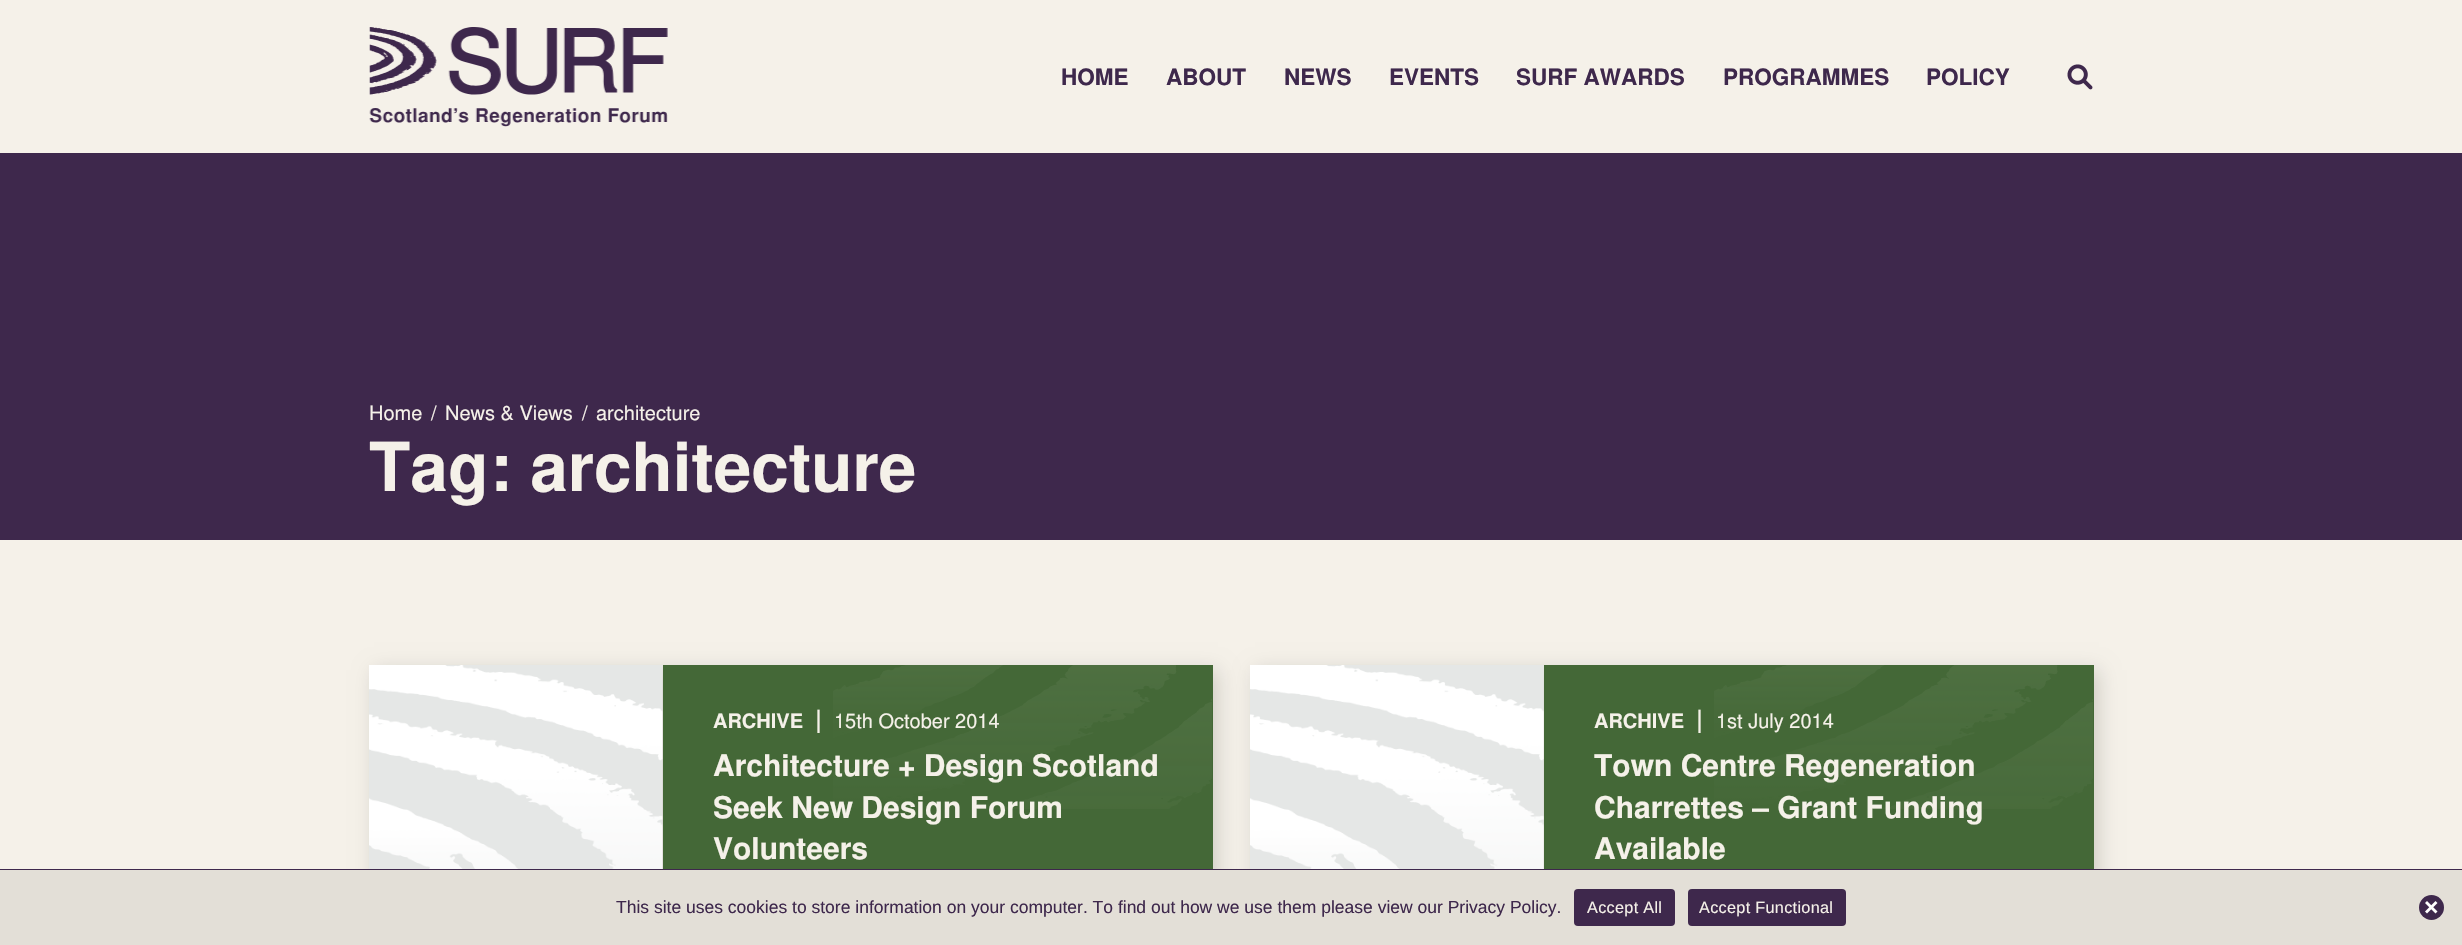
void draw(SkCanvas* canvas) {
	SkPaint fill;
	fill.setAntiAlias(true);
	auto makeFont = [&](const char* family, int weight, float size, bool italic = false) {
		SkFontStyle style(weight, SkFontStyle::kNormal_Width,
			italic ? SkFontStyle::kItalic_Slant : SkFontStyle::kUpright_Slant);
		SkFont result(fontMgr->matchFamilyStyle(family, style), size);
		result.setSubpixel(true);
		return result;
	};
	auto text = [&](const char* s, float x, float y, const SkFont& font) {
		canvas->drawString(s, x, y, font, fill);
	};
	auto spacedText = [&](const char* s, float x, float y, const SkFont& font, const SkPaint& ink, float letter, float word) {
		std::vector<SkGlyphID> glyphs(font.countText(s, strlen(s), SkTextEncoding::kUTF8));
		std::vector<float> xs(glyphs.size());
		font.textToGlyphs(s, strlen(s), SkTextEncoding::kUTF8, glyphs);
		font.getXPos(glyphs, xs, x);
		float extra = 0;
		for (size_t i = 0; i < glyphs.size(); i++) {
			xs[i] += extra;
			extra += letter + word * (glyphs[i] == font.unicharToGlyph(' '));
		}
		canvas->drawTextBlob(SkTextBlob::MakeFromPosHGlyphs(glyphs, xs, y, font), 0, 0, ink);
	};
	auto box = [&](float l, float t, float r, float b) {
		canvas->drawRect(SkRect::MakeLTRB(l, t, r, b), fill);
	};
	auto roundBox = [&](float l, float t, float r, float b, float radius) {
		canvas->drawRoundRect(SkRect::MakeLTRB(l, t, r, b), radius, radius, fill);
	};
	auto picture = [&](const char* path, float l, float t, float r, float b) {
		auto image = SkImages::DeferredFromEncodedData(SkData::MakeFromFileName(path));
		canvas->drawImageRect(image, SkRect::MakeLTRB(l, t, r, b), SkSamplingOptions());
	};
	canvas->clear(0xFFF5F1E9);
	picture("image0.png", 369, 27, 668, 127);
	picture("image1.png", 2067, 64, 2093, 90);
	fill.setColor(0xFF3E284C);
	box(0, 153, 2462, 540);
	fill.setColor(0x26000000);
	fill.setMaskFilter(SkMaskFilter::MakeBlur(kNormal_SkBlurStyle, 9.5f));
	canvas->drawRect(SkRect::MakeLTRB(374, 670, 1218, 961), fill);
	fill.setMaskFilter(nullptr);
	picture("image2.png", 369, 665, 663, 869);
	fill.setColor(0xFF446837);
	box(663, 665, 1213, 869);
	fill.setColor(0x26000000);
	fill.setMaskFilter(SkMaskFilter::MakeBlur(kNormal_SkBlurStyle, 9.5f));
	canvas->drawRect(SkRect::MakeLTRB(1255, 670, 2099, 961), fill);
	fill.setMaskFilter(nullptr);
	picture("image4.png", 1250, 665, 1544, 869);
	fill.setColor(0xFF446837);
	box(1544, 665, 2094, 869);
	fill.setColor(0xFFE3DFD7);
	box(0, 870, 2462, 945);
	fill.setColor(0xFF3E284C);
	box(0, 869, 2462, 870);
	roundBox(1574, 889, 1675, 926, 4);
	roundBox(1688, 889, 1846, 926, 4);
	canvas->drawCircle(2431.5f, 907.5f, 12.5f, fill);
	fill.setColor(0xFFFFFFFF);
	canvas->drawPath(SkPathBuilder().moveTo(2435.5f, 901).lineTo(2437.5f, 903).lineTo(2427, 913.5f).lineTo(2425, 911.5f).close().detach(), fill);
	canvas->drawPath(SkPathBuilder().moveTo(2425, 903).lineTo(2427, 901).lineTo(2437.5f, 911.5f).lineTo(2435.5f, 913.5f).close().detach(), fill);
	auto font1 = makeFont("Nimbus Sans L", 700, 22.5f);
	fill.setColor(0xFF3E284C);
	text("HOME", 1061, 85, font1);
	text("ABOUT", 1166, 85, font1);
	text("NEWS", 1284, 85, font1);
	text("EVENTS", 1389, 85, font1);
	text("SURF AWARDS", 1516, 85, font1);
	text("PROGRAMMES", 1723, 85, font1);
	text("POLICY", 1926, 85, font1);
	auto font2 = makeFont("Nimbus Sans L", 400, 20);
	fill.setColor(0xFFF5F1E9);
	text("Home", 369, 420, font2);
	text("/", 431, 420, font2);
	text("News & Views", 445, 420, font2);
	text("/", 582, 420, font2);
	text("architecture", 596, 420, font2);
	auto font3 = makeFont("Nimbus Sans L", 700, 67.5f);
	text("Tag: architecture", 369, 491, font3);
	auto font4 = makeFont("Nimbus Sans L", 700, 20);
	text("ARCHIVE", 713, 728, font4);
	auto font5 = makeFont("Nimbus Sans L", 700, 25);
	text("|", 815, 728, font5);
	text("15th October 2014", 834, 728, font2);
	auto font6 = makeFont("Nimbus Sans L", 700, 30);
	text("Architecture + Design Scotland", 713, 776, font6);
	text("Seek New Design Forum", 713, 818, font6);
	picture("image3.png", 833, 665, 1212, 809);
	text("Volunteers", 713, 859, font6);
	text("ARCHIVE", 1594, 728, font4);
	text("|", 1696, 728, font5);
	text("1st July 2014", 1716, 728, font2);
	text("Town Centre Regeneration", 1594, 776, font6);
	text("Charrettes – Grant Funding", 1594, 818, font6);
	picture("image5.png", 1714, 665, 2093, 809);
	text("Available", 1594, 859, font6);
	auto font7 = makeFont("Liberation Sans", 400, 17.5f);
	fill.setColor(0xFF3E284C);
	text("This site uses cookies to store information on your computer. To find out how we use them please view our Privacy Policy.", 616, 913, font7);
	auto font8 = makeFont("Liberation Sans", 400, 16.25f);
	fill.setColor(0xFFF5F1E9);
	spacedText("Accept All", 1587, 913, font8, fill, 0.3f, 0);
	spacedText("Accept Functional", 1699, 913, font8, fill, 0.3f, 0);
}
